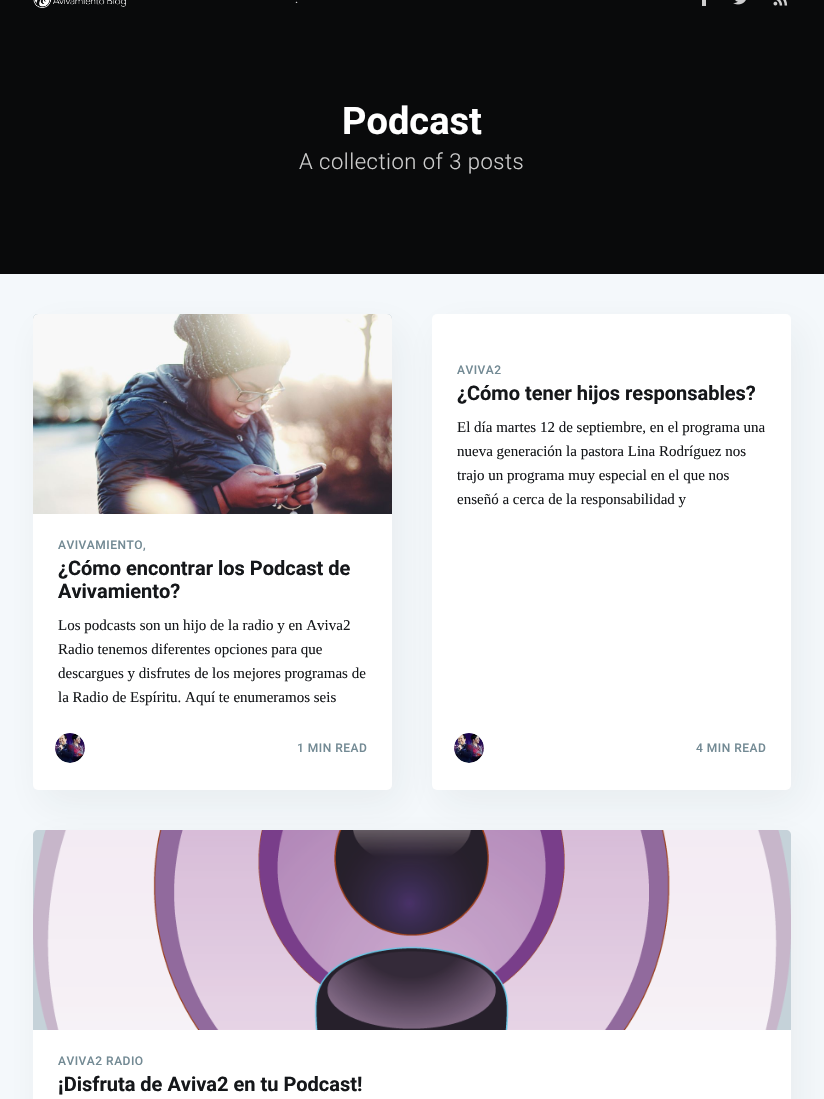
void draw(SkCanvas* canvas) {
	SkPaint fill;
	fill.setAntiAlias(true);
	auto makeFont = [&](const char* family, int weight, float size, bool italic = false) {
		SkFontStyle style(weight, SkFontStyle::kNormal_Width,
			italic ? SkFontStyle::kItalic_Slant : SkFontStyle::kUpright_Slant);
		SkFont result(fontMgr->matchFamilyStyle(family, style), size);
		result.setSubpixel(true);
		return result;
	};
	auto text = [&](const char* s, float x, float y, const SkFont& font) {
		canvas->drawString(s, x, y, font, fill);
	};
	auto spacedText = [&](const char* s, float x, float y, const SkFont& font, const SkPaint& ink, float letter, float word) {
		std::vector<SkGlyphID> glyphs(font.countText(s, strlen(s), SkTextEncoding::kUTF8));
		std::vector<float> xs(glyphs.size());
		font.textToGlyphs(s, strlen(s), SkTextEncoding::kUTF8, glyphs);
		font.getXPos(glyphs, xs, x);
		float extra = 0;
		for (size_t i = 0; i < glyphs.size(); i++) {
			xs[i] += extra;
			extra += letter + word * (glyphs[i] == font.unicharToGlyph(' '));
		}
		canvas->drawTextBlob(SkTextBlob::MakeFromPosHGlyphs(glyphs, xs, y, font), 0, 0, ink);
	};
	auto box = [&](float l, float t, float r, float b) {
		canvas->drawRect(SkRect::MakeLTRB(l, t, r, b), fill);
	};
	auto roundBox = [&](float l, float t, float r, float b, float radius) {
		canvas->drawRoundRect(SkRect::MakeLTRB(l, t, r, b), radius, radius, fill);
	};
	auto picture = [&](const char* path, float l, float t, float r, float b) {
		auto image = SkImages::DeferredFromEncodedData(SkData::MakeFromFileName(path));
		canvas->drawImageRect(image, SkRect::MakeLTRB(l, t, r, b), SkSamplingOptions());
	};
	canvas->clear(0xFFF4F8FB);
	fill.setColor(0xFF090A0B);
	box(0, 0, 824, 274);
	picture("image0.png", 33, 0, 126, 9);
	fill.setColor(0xFFCECECE);
	box(702, 0, 706, 6);
	picture("image1.png", 733, 0, 746, 5);
	picture("image2.png", 773, 0, 788, 6);
	fill.setColor(0x0F272C31);
	fill.setMaskFilter(SkMaskFilter::MakeBlur(kNormal_SkBlurStyle, 19));
	canvas->drawRoundRect(SkRect::MakeLTRB(41, 328, 400, 804), 5, 5, fill);
	fill.setMaskFilter(nullptr);
	fill.setColor(0xFFFFFFFF);
	roundBox(33, 314, 392, 790, 5);
	fill.setColor(0x0F272C31);
	fill.setMaskFilter(SkMaskFilter::MakeBlur(kNormal_SkBlurStyle, 19));
	canvas->drawRoundRect(SkRect::MakeLTRB(440, 328, 799, 804), 5, 5, fill);
	fill.setMaskFilter(nullptr);
	fill.setColor(0xFFC5D2D9);
	canvas->drawPath(SkPathBuilder().moveTo(38, 314).lineTo(387, 314).cubicTo(390, 314, 392, 316, 392, 319).lineTo(392, 514).lineTo(33, 514).lineTo(33, 319).cubicTo(33, 316, 35, 314, 38, 314).close().detach(), fill);
	picture("image3.png", 33, 314, 392, 514);
	fill.setColor(0xFFE3E9ED);
	canvas->drawCircle(70, 748, 15, fill);
	picture("image4.png", 55, 733, 85, 763);
	fill.setColor(0xFFFFFFFF);
	roundBox(432, 314, 791, 790, 5);
	fill.setColor(0xFFE3E9ED);
	canvas->drawCircle(469, 748, 15, fill);
	picture("image5.png", 454, 733, 484, 763);
	fill.setColor(0x0F272C31);
	fill.setMaskFilter(SkMaskFilter::MakeBlur(kNormal_SkBlurStyle, 19));
	canvas->drawRoundRect(SkRect::MakeLTRB(41, 844, 799, 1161), 5, 5, fill);
	fill.setMaskFilter(nullptr);
	fill.setColor(0xFFFFFFFF);
	roundBox(33, 830, 791, 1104, 5);
	fill.setColor(0xFFC5D2D9);
	canvas->drawPath(SkPathBuilder().moveTo(38, 830).lineTo(786, 830).cubicTo(789, 830, 791, 832, 791, 835).lineTo(791, 1030).lineTo(33, 1030).lineTo(33, 835).cubicTo(33, 832, 35, 830, 38, 830).close().detach(), fill);
	picture("image6.png", 33, 830, 791, 1030);
	auto font1 = makeFont("Roboto", 400, 12);
	fill.setColor(0xFFCECECE);
	text(".", 295, 3, font1);
	auto font2 = makeFont("Roboto", 700, 38);
	fill.setColor(0xFFFFFFFF);
	text("Podcast", 342, 134, font2);
	auto font3 = makeFont("Roboto", 300, 22);
	fill.setColor(0xFFCECECE);
	spacedText("A collection of 3 posts", 299, 169, font3, fill, 0.5f, 0);
	auto font4 = makeFont("Roboto", 500, 12);
	fill.setColor(0xFF738A94);
	spacedText("AVIVAMIENTO,", 58, 549, font4, fill, 0.5f, 0);
	auto font5 = makeFont("Roboto", 700, 20);
	fill.setColor(0xFF15171A);
	text("¿Cómo encontrar los Podcast de", 58, 575, font5);
	text("Avivamiento?", 58, 598, font5);
	auto font6 = makeFont("Liberation Serif", 400, 15);
	text("Los podcasts son un hijo de la radio y en Aviva2", 58, 630, font6);
	text("Radio tenemos diferentes opciones para que", 58, 654, font6);
	text("descargues y disfrutes de los mejores programas de", 58, 678, font6);
	text("la Radio de Espíritu. Aquí te enumeramos seis", 58, 702, font6);
	fill.setColor(0xFF738A94);
	spacedText("1 MIN READ", 297, 752, font4, fill, 0.5f, 0);
	spacedText("AVIVA2", 457, 374, font4, fill, 0.5f, 0);
	fill.setColor(0xFF15171A);
	text("¿Cómo tener hijos responsables?", 457, 400, font5);
	text("El día martes 12 de septiembre, en el programa una", 457, 432, font6);
	text("nueva generación la pastora Lina Rodríguez nos", 457, 456, font6);
	text("trajo un programa muy especial en el que nos", 457, 480, font6);
	text("enseñó a cerca de la responsabilidad y", 457, 504, font6);
	fill.setColor(0xFF738A94);
	spacedText("4 MIN READ", 696, 752, font4, fill, 0.5f, 0);
	spacedText("AVIVA2 RADIO", 58, 1065, font4, fill, 0.5f, 0);
	fill.setColor(0xFF15171A);
	text("¡Disfruta de Aviva2 en tu Podcast!", 58, 1091, font5);
}
